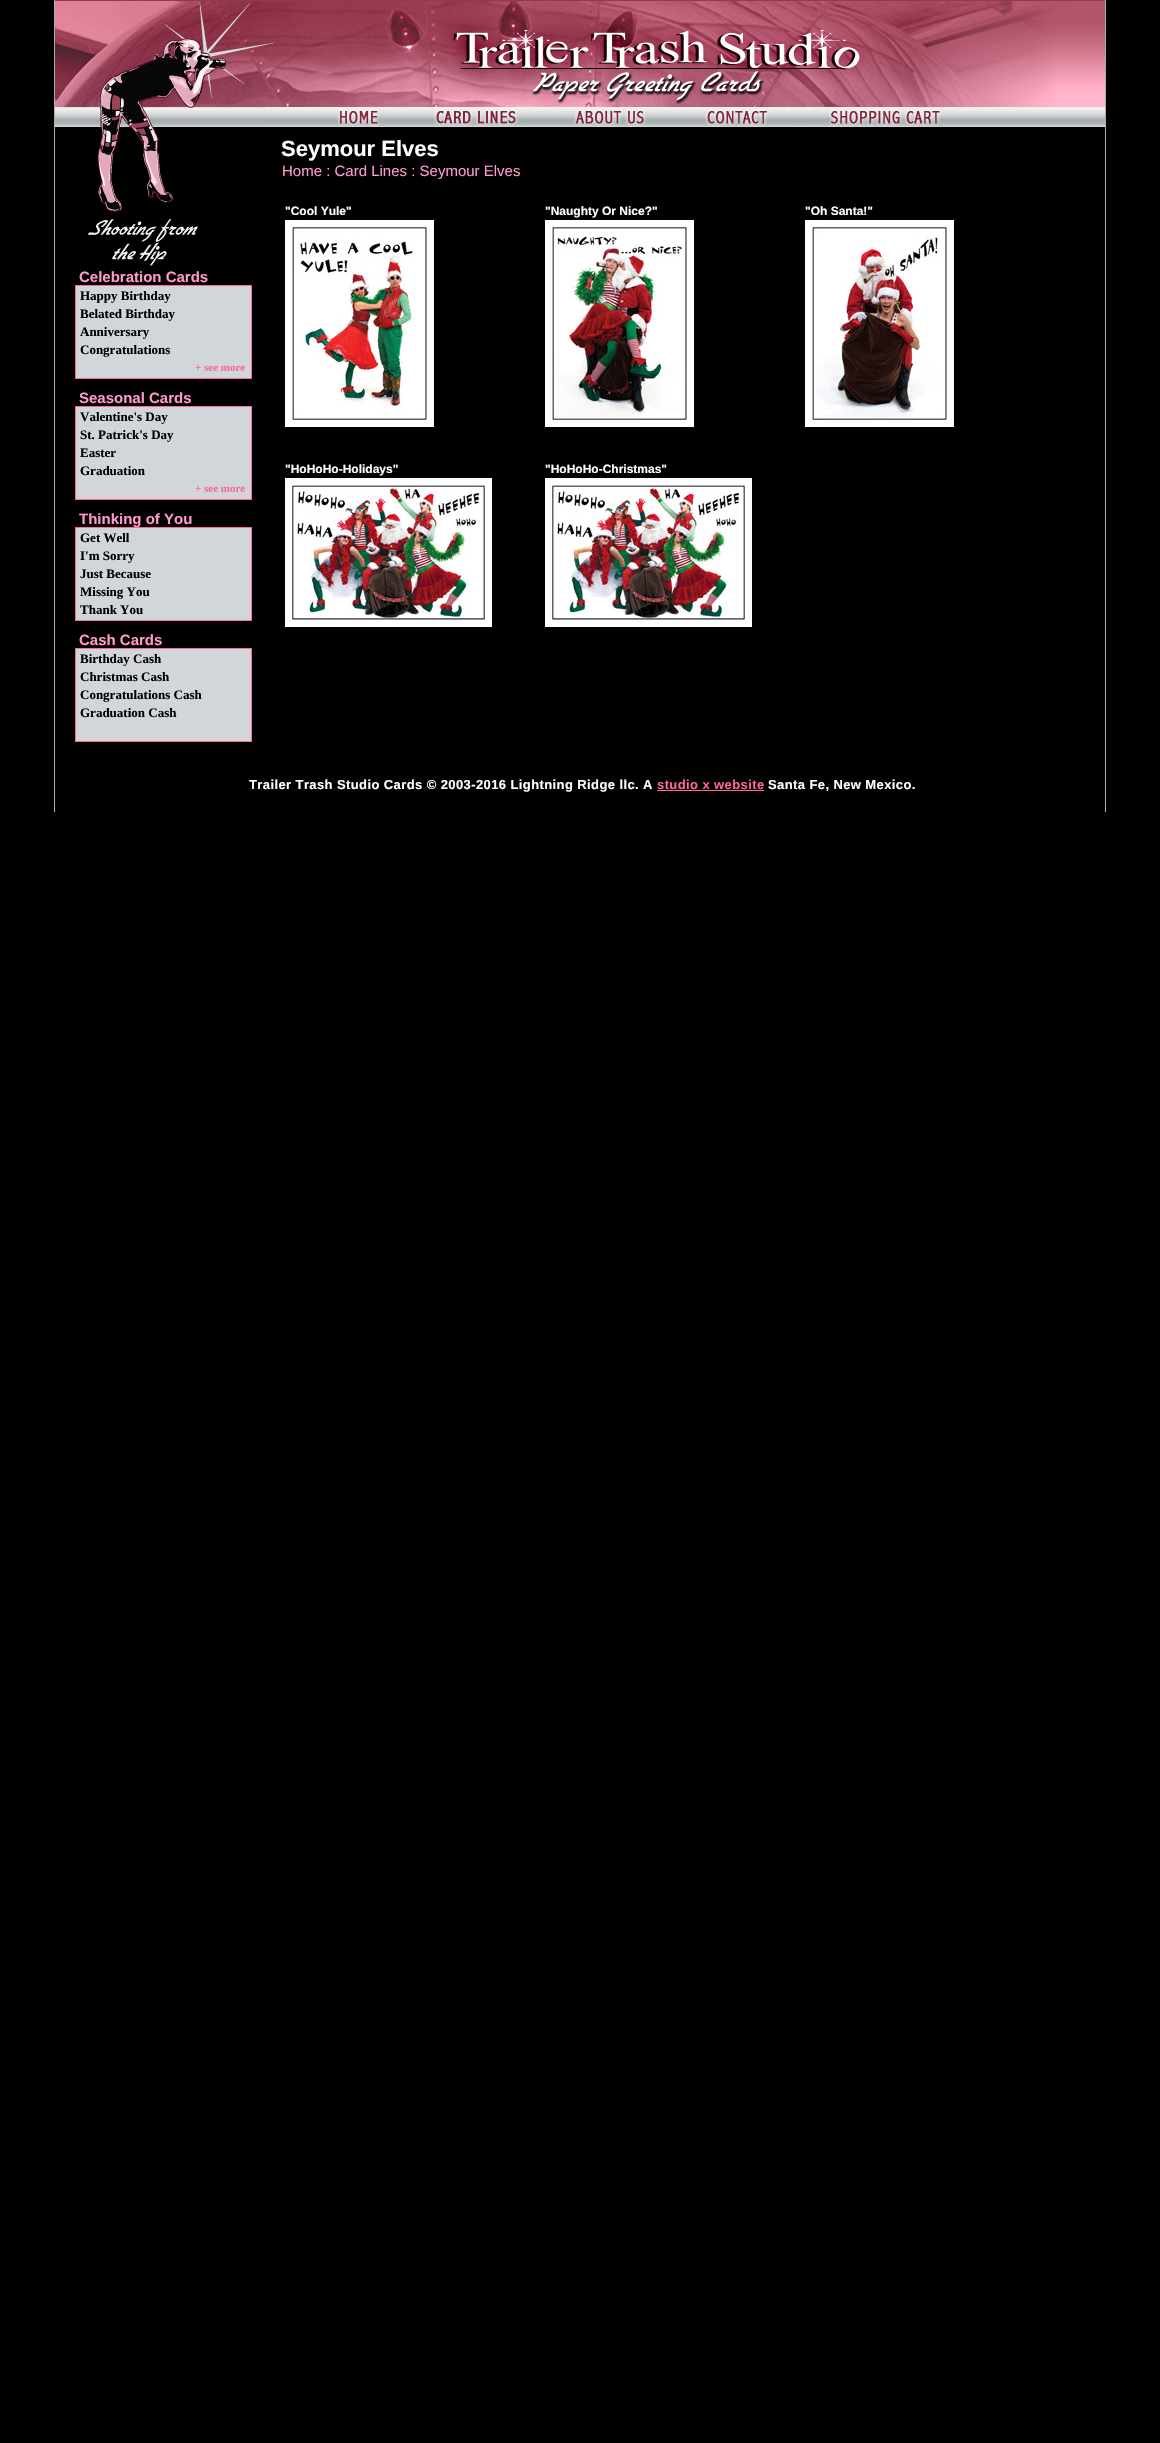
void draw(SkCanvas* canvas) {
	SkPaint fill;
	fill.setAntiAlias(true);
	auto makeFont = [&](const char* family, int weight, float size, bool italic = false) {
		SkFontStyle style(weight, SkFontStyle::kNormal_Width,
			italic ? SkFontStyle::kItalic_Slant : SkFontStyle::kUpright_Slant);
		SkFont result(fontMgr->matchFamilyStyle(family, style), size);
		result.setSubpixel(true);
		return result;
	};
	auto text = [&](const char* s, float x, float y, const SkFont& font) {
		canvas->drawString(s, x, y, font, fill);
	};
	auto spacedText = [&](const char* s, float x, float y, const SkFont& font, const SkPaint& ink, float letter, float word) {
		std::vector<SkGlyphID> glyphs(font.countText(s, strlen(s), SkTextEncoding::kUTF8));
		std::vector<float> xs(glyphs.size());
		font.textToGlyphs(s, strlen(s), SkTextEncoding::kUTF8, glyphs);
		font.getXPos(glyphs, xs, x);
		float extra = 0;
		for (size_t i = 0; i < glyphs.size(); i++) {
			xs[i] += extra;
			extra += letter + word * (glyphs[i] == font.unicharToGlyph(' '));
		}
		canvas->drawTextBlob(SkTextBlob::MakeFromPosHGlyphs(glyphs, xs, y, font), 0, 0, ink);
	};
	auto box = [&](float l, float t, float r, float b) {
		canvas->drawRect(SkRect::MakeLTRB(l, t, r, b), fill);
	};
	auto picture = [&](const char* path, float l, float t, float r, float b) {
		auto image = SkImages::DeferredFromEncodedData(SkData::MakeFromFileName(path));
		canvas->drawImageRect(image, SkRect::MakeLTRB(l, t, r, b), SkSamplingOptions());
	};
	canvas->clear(0xFF000000);
	fill.setColor(0xFFA9B0B1);
	box(1105, 0, 1106, 812);
	box(54, 0, 55, 812);
	picture("image0.png", 1055, 0, 1105, 107);
	picture("image1.png", 55, 0, 1055, 107);
	picture("image2.png", 392, 107, 1105, 127);
	picture("image3.png", 55, 107, 292, 127);
	picture("image4.png", 292, 107, 392, 127);
	picture("image5.png", 412, 107, 546, 127);
	picture("image6.png", 546, 107, 677, 127);
	picture("image7.png", 677, 107, 796, 127);
	picture("image8.png", 796, 107, 944, 127);
	picture("image9.png", 87, 127, 198, 266);
	fill.setColor(0xFFD0D6DA);
	canvas->drawRect(SkRect::MakeLTRB(75.5f, 285.5f, 251.5f, 378.5f), fill);
	fill.setStyle(SkPaint::kStroke_Style);
	fill.setStrokeWidth(1);
	fill.setColor(0xFFFF6699);
	canvas->drawRect(SkRect::MakeLTRB(75.5f, 285.5f, 251.5f, 378.5f), fill);
	fill.setStyle(SkPaint::kFill_Style);
	fill.setColor(0xFFD0D6DA);
	canvas->drawRect(SkRect::MakeLTRB(75.5f, 406.5f, 251.5f, 499.5f), fill);
	fill.setStyle(SkPaint::kStroke_Style);
	fill.setColor(0xFFFF6699);
	canvas->drawRect(SkRect::MakeLTRB(75.5f, 406.5f, 251.5f, 499.5f), fill);
	fill.setStyle(SkPaint::kFill_Style);
	fill.setColor(0xFFD0D6DA);
	canvas->drawRect(SkRect::MakeLTRB(75.5f, 648.5f, 251.5f, 741.5f), fill);
	fill.setStyle(SkPaint::kStroke_Style);
	fill.setColor(0xFFFF6699);
	canvas->drawRect(SkRect::MakeLTRB(75.5f, 648.5f, 251.5f, 741.5f), fill);
	picture("image10.png", 285, 220, 434, 427);
	picture("image11.png", 545, 220, 694, 427);
	picture("image12.png", 805, 220, 954, 427);
	picture("image13.png", 285, 478, 492, 627);
	picture("image13.png", 545, 478, 752, 627);
	fill.setStyle(SkPaint::kFill_Style);
	box(657, 790, 764, 791);
	auto font1 = makeFont("Liberation Sans", 700, 15);
	fill.setColor(0xFFFF99CC);
	text("Celebration Cards", 79, 282, font1);
	auto font2 = makeFont("Liberation Serif", 700, 13);
	fill.setColor(0xFF000000);
	text("Happy Birthday", 80, 300, font2);
	text("Belated Birthday", 80, 318, font2);
	text("Anniversary", 80, 336, font2);
	text("Congratulations", 80, 354, font2);
	auto font3 = makeFont("Liberation Serif", 700, 11);
	fill.setColor(0xFFFF6699);
	text("+ see more", 195, 371, font3);
	fill.setColor(0xFFFF99CC);
	text("Seasonal Cards", 79, 403, font1);
	fill.setColor(0xFF000000);
	text("Valentine's Day", 80, 421, font2);
	text("St. Patrick's Day", 80, 439, font2);
	text("Easter", 80, 457, font2);
	text("Graduation", 80, 475, font2);
	fill.setColor(0xFFFF6699);
	text("+ see more", 195, 492, font3);
	fill.setColor(0xFFFF99CC);
	text("Thinking of You", 79, 524, font1);
	fill.setColor(0xFFD0D6DA);
	canvas->drawRect(SkRect::MakeLTRB(75.5f, 527.5f, 251.5f, 620.5f), fill);
	fill.setStyle(SkPaint::kStroke_Style);
	fill.setColor(0xFFFF6699);
	canvas->drawRect(SkRect::MakeLTRB(75.5f, 527.5f, 251.5f, 620.5f), fill);
	fill.setStyle(SkPaint::kFill_Style);
	fill.setColor(0xFF000000);
	text("Get Well", 80, 542, font2);
	text("I'm Sorry", 80, 560, font2);
	text("Just Because", 80, 578, font2);
	text("Missing You", 80, 596, font2);
	text("Thank You", 80, 614, font2);
	fill.setColor(0xFFFF99CC);
	text("Cash Cards", 79, 645, font1);
	fill.setColor(0xFF000000);
	text("Birthday Cash", 80, 663, font2);
	text("Christmas Cash", 80, 681, font2);
	text("Congratulations Cash", 80, 699, font2);
	text("Graduation Cash", 80, 717, font2);
	auto font4 = makeFont("Liberation Sans", 700, 22);
	fill.setColor(0xFFFFFFFF);
	text("Seymour Elves", 281, 156, font4);
	auto font5 = makeFont("Liberation Sans", 400, 15);
	fill.setColor(0xFFFF99CC);
	text("Home : Card Lines : Seymour Elves", 282, 176, font5);
	auto font6 = makeFont("Liberation Sans", 700, 12);
	fill.setColor(0xFFFFFFFF);
	text("\"Cool Yule\"", 285, 215, font6);
	text("\"Naughty Or Nice?\"", 545, 215, font6);
	text("\"Oh Santa!\"", 805, 215, font6);
	text("\"HoHoHo-Holidays\"", 285, 473, font6);
	text("\"HoHoHo-Christmas\"", 545, 473, font6);
	auto font7 = makeFont("Liberation Sans", 700, 13);
	spacedText("Trailer Trash Studio Cards © 2003-2016 Lightning Ridge llc. A", 249, 789, font7, fill, 0.4f, 0);
	fill.setColor(0xFFFF6699);
	spacedText("studio x website", 657, 789, font7, fill, 0.4f, 0);
	fill.setColor(0xFFFFFFFF);
	spacedText("Santa Fe, New Mexico.", 768, 789, font7, fill, 0.4f, 0);
}
